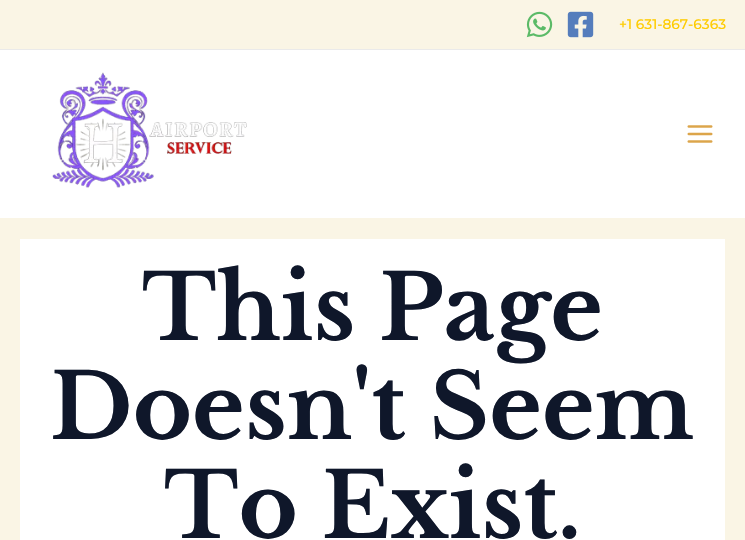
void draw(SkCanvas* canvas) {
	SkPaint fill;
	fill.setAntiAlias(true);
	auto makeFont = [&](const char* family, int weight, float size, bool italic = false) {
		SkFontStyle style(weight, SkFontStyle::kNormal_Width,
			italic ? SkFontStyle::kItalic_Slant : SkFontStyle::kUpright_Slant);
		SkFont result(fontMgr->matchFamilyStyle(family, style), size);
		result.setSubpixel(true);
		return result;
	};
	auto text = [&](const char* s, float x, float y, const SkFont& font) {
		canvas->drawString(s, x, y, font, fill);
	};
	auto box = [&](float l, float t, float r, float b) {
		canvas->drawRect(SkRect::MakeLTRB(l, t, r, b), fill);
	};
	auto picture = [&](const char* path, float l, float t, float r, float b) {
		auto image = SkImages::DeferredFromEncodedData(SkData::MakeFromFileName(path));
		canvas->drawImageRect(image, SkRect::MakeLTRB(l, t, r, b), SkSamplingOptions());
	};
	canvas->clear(0xFFFAF5E5);
	fill.setColor(0xFFEAEAEA);
	box(0, 49, 745, 50);
	picture("image0.png", 526, 11, 553, 38);
	picture("image1.png", 567, 11, 594, 38);
	fill.setColor(0xFFFFFFFF);
	box(0, 50, 745, 218);
	picture("image2.png", 52, 72, 247, 188);
	picture("image3.png", 687, 125, 713, 143);
	box(20, 239, 725, 540);
	auto font1 = makeFont("Montserrat", 100, 13.75f);
	fill.setColor(0xFFFFCC00);
	text("+1 631-867-6363", 619, 29, font1);
	auto font2 = makeFont("Libre Baskerville", 700, 90);
	fill.setColor(0xFF0F172A);
	text("This Page", 142, 340, font2);
	text("Doesn't Seem", 50, 439, font2);
	text("To Exist.", 164, 538, font2);
}
